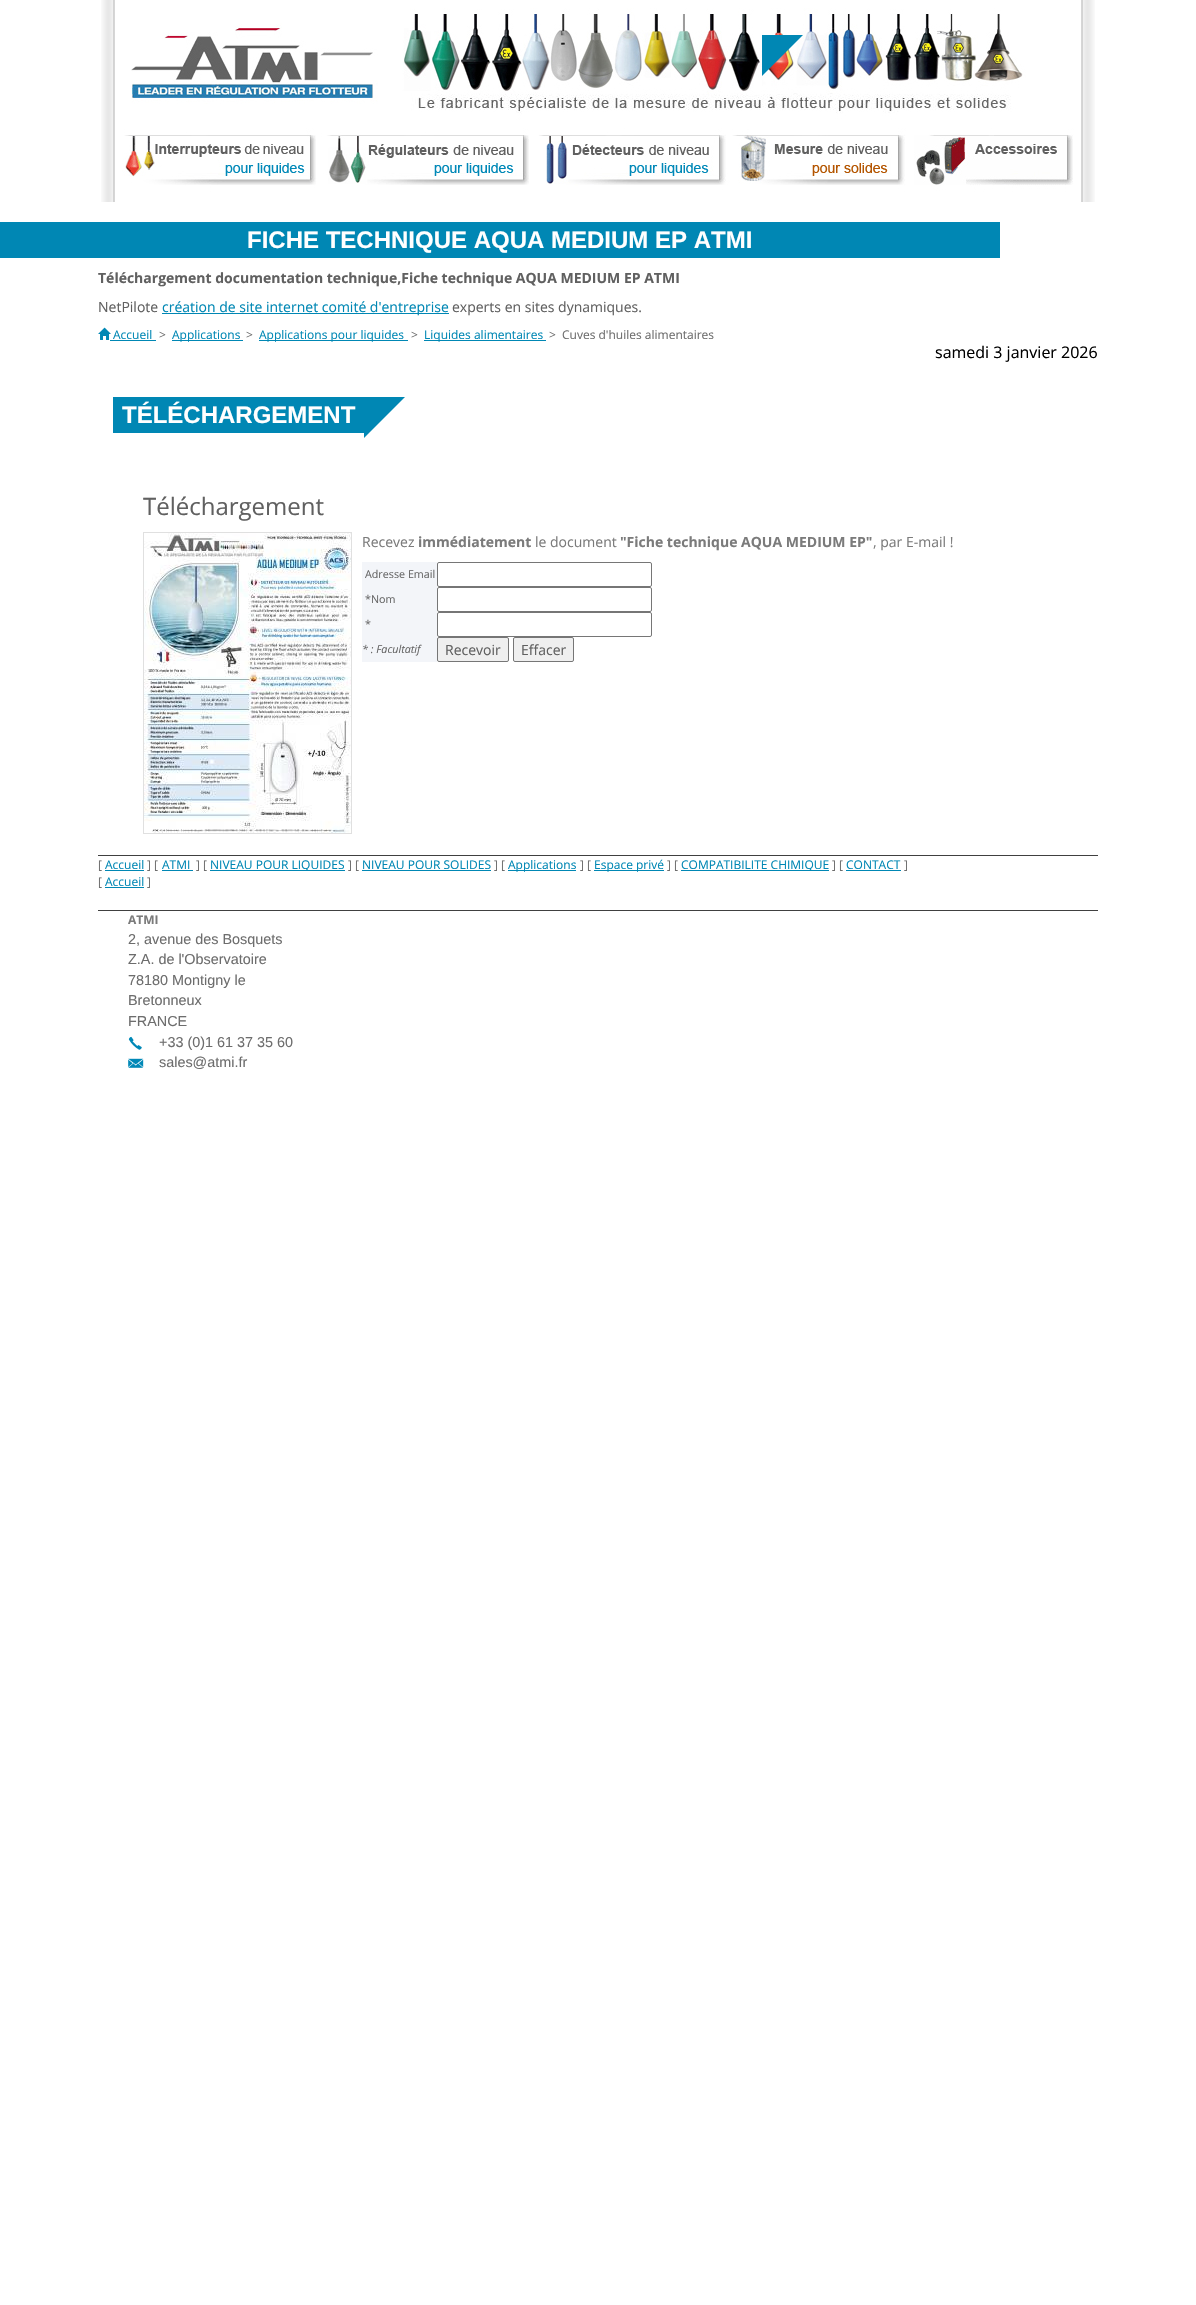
void draw(SkCanvas* canvas) {
	SkPaint fill;
	fill.setAntiAlias(true);
	auto makeFont = [&](const char* family, int weight, float size, bool italic = false) {
		SkFontStyle style(weight, SkFontStyle::kNormal_Width,
			italic ? SkFontStyle::kItalic_Slant : SkFontStyle::kUpright_Slant);
		SkFont result(fontMgr->matchFamilyStyle(family, style), size);
		result.setSubpixel(true);
		return result;
	};
	auto text = [&](const char* s, float x, float y, const SkFont& font) {
		canvas->drawString(s, x, y, font, fill);
	};
	auto box = [&](float l, float t, float r, float b) {
		canvas->drawRect(SkRect::MakeLTRB(l, t, r, b), fill);
	};
	auto picture = [&](const char* path, float l, float t, float r, float b) {
		auto image = SkImages::DeferredFromEncodedData(SkData::MakeFromFileName(path));
		canvas->drawImageRect(image, SkRect::MakeLTRB(l, t, r, b), SkSamplingOptions());
	};
	canvas->clear(0xFFFFFFFF);
	picture("image0.png", 101, 0, 1095, 202);
	fill.setColor(0xFF0087B4);
	box(0, 222, 1000, 258);
	canvas->drawPath(SkPathBuilder().moveTo(762, 35).lineTo(803, 35).lineTo(762, 76).close().detach(), fill);
	box(162, 313, 449, 314);
	picture("image1.png", 98, 327, 111, 340);
	box(110, 340, 156, 341);
	box(172, 340, 243, 341);
	box(259, 340, 408, 341);
	box(424, 340, 546, 341);
	box(113, 397, 364, 433);
	canvas->drawPath(SkPathBuilder().moveTo(364, 397).lineTo(405, 397).lineTo(364, 438).close().detach(), fill);
	fill.setStyle(SkPaint::kStroke_Style);
	fill.setStrokeWidth(1);
	fill.setColor(0xFFE0E0E0);
	canvas->drawRect(SkRect::MakeLTRB(143.5f, 532.5f, 351.5f, 833.5f), fill);
	picture("image2.png", 144, 533, 351, 833);
	fill.setStyle(SkPaint::kFill_Style);
	fill.setColor(0xFFF3F5F9);
	box(362, 562, 437, 662);
	fill.setStyle(SkPaint::kStroke_Style);
	fill.setColor(0xFF767676);
	canvas->drawRoundRect(SkRect::MakeLTRB(437.5f, 562.5f, 651.5f, 586.5f), 1.5f, 1.5f, fill);
	canvas->drawRoundRect(SkRect::MakeLTRB(437.5f, 587.5f, 651.5f, 611.5f), 1.5f, 1.5f, fill);
	canvas->drawRoundRect(SkRect::MakeLTRB(437.5f, 612.5f, 651.5f, 636.5f), 1.5f, 1.5f, fill);
	fill.setStyle(SkPaint::kFill_Style);
	fill.setColor(0xFFEFEFEF);
	canvas->drawRoundRect(SkRect::MakeLTRB(437.5f, 637.5f, 508.5f, 661.5f), 1.5f, 1.5f, fill);
	fill.setStyle(SkPaint::kStroke_Style);
	fill.setColor(0xFF767676);
	canvas->drawRoundRect(SkRect::MakeLTRB(437.5f, 637.5f, 508.5f, 661.5f), 1.5f, 1.5f, fill);
	fill.setStyle(SkPaint::kFill_Style);
	fill.setColor(0xFFEFEFEF);
	canvas->drawRoundRect(SkRect::MakeLTRB(513.5f, 637.5f, 573.5f, 661.5f), 1.5f, 1.5f, fill);
	fill.setStyle(SkPaint::kStroke_Style);
	fill.setColor(0xFF767676);
	canvas->drawRoundRect(SkRect::MakeLTRB(513.5f, 637.5f, 573.5f, 661.5f), 1.5f, 1.5f, fill);
	fill.setStyle(SkPaint::kFill_Style);
	fill.setColor(0xFF404040);
	box(98, 855, 1098, 856);
	fill.setColor(0xFF0087B4);
	box(105, 870, 144, 871);
	box(162, 870, 193, 871);
	box(210, 870, 345, 871);
	box(362, 870, 491, 871);
	box(508, 870, 576, 871);
	box(594, 870, 664, 871);
	box(681, 870, 829, 871);
	box(846, 870, 901, 871);
	box(105, 887, 144, 888);
	fill.setColor(0xFF404040);
	box(98, 910, 1098, 911);
	picture("image3.png", 128, 1036, 142, 1050);
	picture("image4.png", 128, 1058, 144, 1068);
	auto font1 = makeFont("Liberation Sans", 700, 24);
	fill.setColor(0xFFFFFFFF);
	text("FICHE TECHNIQUE AQUA MEDIUM EP ATMI", 247, 248, font1);
	auto font2 = makeFont("Open Sans", 700, 14);
	fill.setColor(0xFF606060);
	text("Téléchargement documentation technique,Fiche technique AQUA MEDIUM EP ATMI", 98, 283, font2);
	auto font3 = makeFont("Open Sans", 400, 14);
	text("NetPilote", 98, 312, font3);
	fill.setColor(0xFF0087B4);
	text("création de site internet comité d'entreprise", 162, 312, font3);
	fill.setColor(0xFF606060);
	text("experts en sites dynamiques.", 452, 312, font3);
	auto font4 = makeFont("Open Sans", 400, 12);
	fill.setColor(0xFF0087B4);
	text("Accueil", 113, 339, font4);
	fill.setColor(0xFF6D6D6D);
	text(">", 159, 339, font4);
	fill.setColor(0xFF0087B4);
	text("Applications", 172, 339, font4);
	fill.setColor(0xFF6D6D6D);
	text(">", 246, 339, font4);
	fill.setColor(0xFF0087B4);
	text("Applications pour liquides", 259, 339, font4);
	fill.setColor(0xFF6D6D6D);
	text(">", 411, 339, font4);
	fill.setColor(0xFF0087B4);
	text("Liquides alimentaires", 424, 339, font4);
	fill.setColor(0xFF6D6D6D);
	text(">", 549, 339, font4);
	text("Cuves d'huiles alimentaires", 562, 339, font4);
	auto font5 = makeFont("Open Sans", 400, 16);
	fill.setColor(0xFF000000);
	text("samedi 3 janvier 2026", 935, 358, font5);
	fill.setColor(0xFFFFFFFF);
	text("TÉLÉCHARGEMENT", 122, 423, font1);
	auto font6 = makeFont("Open Sans", 400, 24);
	fill.setColor(0xFF606060);
	text("Téléchargement", 143, 515, font6);
	fill.setColor(0xFF7B7B7B);
	text("Recevez", 362, 547, font3);
	text("immédiatement", 418, 547, font2);
	text("le document", 535, 547, font3);
	text("\"Fiche technique AQUA MEDIUM EP\"", 620, 547, font2);
	text(", par E-mail !", 873, 547, font3);
	auto font7 = makeFont("Open Sans", 400, 10.75f);
	fill.setColor(0xFF666666);
	text("Adresse Email", 365, 578, font7);
	text("*Nom", 365, 603, font7);
	text("*", 365, 628, font7);
	auto font8 = makeFont("Open Sans", 400, 10.75f, true);
	text("* : Facultatif", 362, 653, font8);
	fill.setColor(0xFF606060);
	text("Recevoir", 445, 655, font3);
	text("Effacer", 521, 655, font3);
	fill.setColor(0xFF6D6D6D);
	text("[", 98, 869, font4);
	fill.setColor(0xFF0087B4);
	text("Accueil", 105, 869, font4);
	fill.setColor(0xFF6D6D6D);
	text("] [", 147, 869, font4);
	fill.setColor(0xFF0087B4);
	text("ATMI", 162, 869, font4);
	fill.setColor(0xFF6D6D6D);
	text("] [", 196, 869, font4);
	fill.setColor(0xFF0087B4);
	text("NIVEAU POUR LIQUIDES", 210, 869, font4);
	fill.setColor(0xFF6D6D6D);
	text("] [", 348, 869, font4);
	fill.setColor(0xFF0087B4);
	text("NIVEAU POUR SOLIDES", 362, 869, font4);
	fill.setColor(0xFF6D6D6D);
	text("] [", 494, 869, font4);
	fill.setColor(0xFF0087B4);
	text("Applications", 508, 869, font4);
	fill.setColor(0xFF6D6D6D);
	text("] [", 580, 869, font4);
	fill.setColor(0xFF0087B4);
	text("Espace privé", 594, 869, font4);
	fill.setColor(0xFF6D6D6D);
	text("] [", 667, 869, font4);
	fill.setColor(0xFF0087B4);
	text("COMPATIBILITE CHIMIQUE", 681, 869, font4);
	fill.setColor(0xFF6D6D6D);
	text("] [", 832, 869, font4);
	fill.setColor(0xFF0087B4);
	text("CONTACT", 846, 869, font4);
	fill.setColor(0xFF6D6D6D);
	text("]", 904, 869, font4);
	text("[", 98, 886, font4);
	fill.setColor(0xFF0087B4);
	text("Accueil", 105, 886, font4);
	fill.setColor(0xFF6D6D6D);
	text("]", 147, 886, font4);
	auto font9 = makeFont("Open Sans", 700, 12);
	fill.setColor(0xFF7B7B7B);
	text("ATMI", 128, 924, font9);
	auto font10 = makeFont("Liberation Sans", 400, 14.4f);
	fill.setColor(0xFF6D6D6D);
	text("2, avenue des Bosquets", 128, 944, font10);
	text("Z.A. de l'Observatoire", 128, 964, font10);
	text("78180 Montigny le", 128, 985, font10);
	text("Bretonneux", 128, 1005, font10);
	text("FRANCE", 128, 1026, font10);
	text("+33 (0)1 61 37 35 60", 159, 1047, font10);
	text("sales@atmi.fr", 159, 1067, font10);
}
